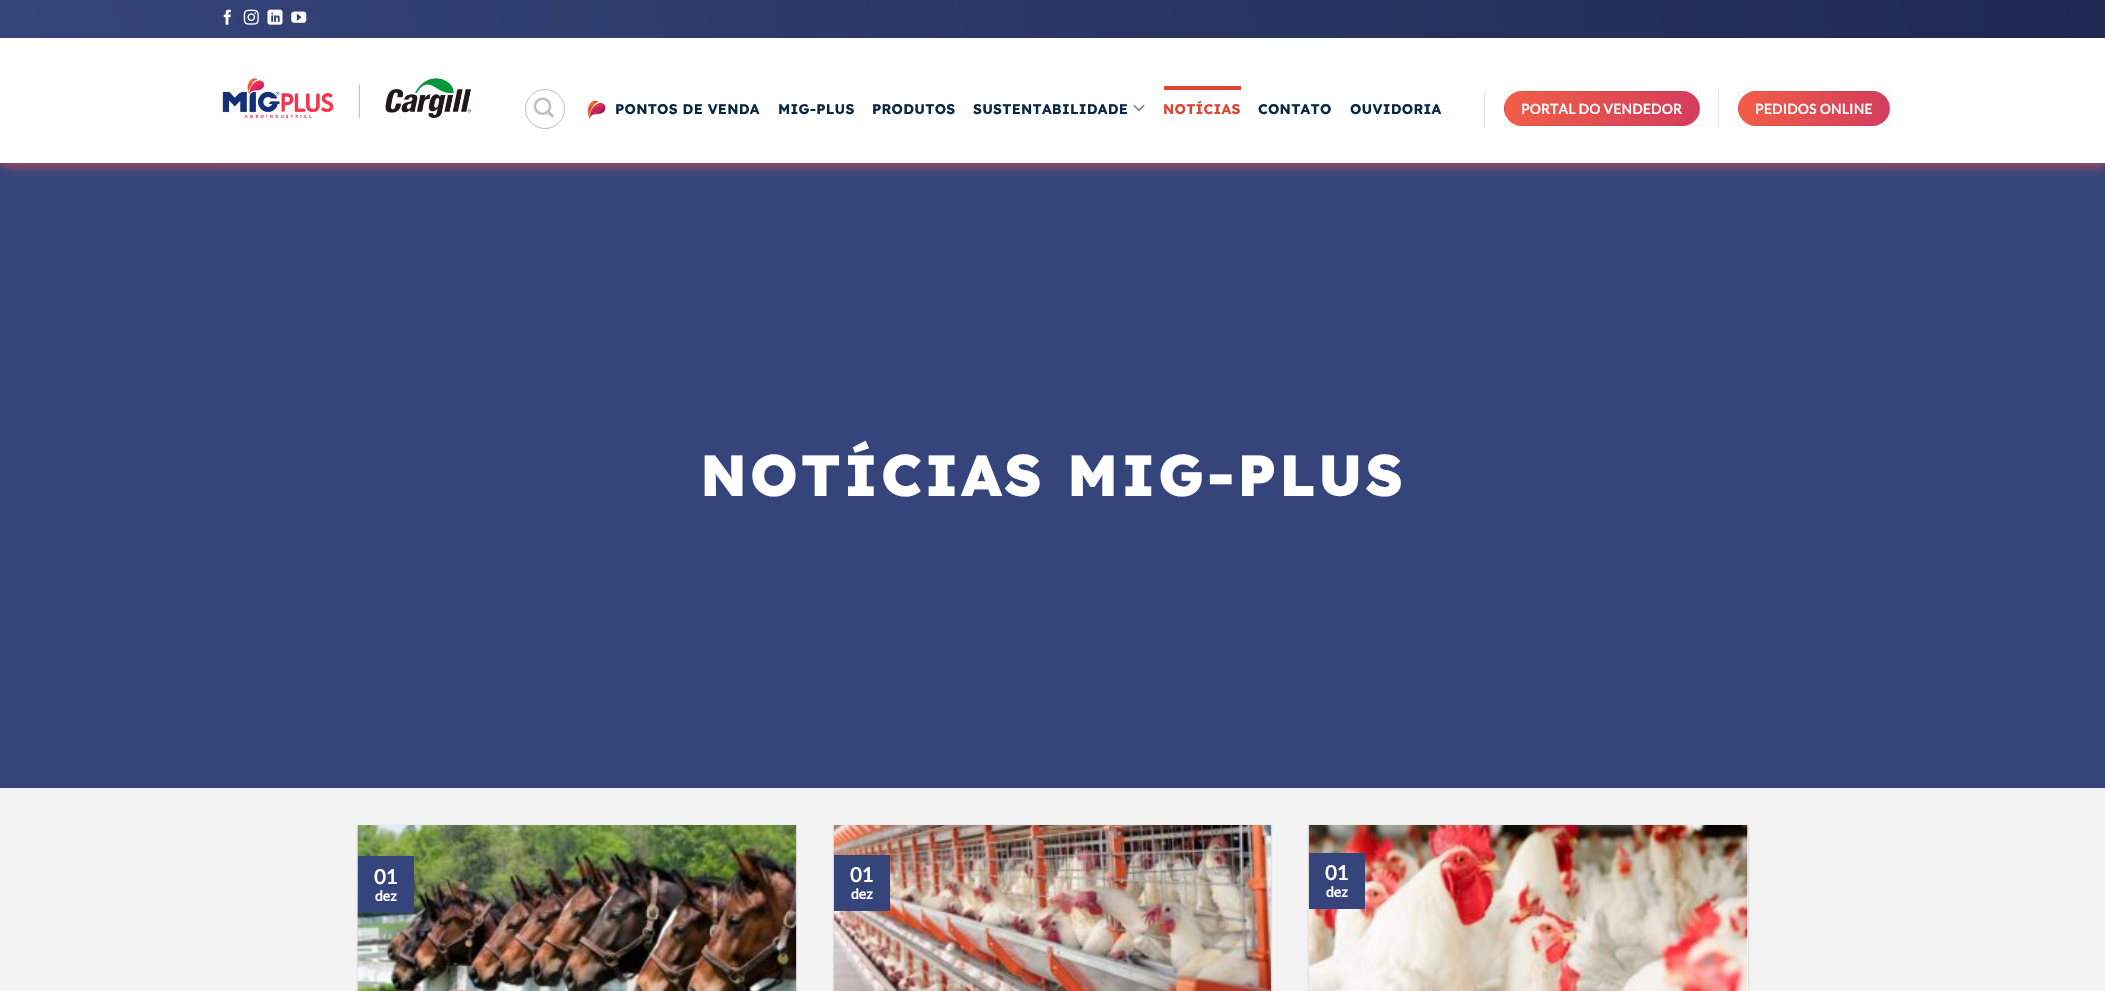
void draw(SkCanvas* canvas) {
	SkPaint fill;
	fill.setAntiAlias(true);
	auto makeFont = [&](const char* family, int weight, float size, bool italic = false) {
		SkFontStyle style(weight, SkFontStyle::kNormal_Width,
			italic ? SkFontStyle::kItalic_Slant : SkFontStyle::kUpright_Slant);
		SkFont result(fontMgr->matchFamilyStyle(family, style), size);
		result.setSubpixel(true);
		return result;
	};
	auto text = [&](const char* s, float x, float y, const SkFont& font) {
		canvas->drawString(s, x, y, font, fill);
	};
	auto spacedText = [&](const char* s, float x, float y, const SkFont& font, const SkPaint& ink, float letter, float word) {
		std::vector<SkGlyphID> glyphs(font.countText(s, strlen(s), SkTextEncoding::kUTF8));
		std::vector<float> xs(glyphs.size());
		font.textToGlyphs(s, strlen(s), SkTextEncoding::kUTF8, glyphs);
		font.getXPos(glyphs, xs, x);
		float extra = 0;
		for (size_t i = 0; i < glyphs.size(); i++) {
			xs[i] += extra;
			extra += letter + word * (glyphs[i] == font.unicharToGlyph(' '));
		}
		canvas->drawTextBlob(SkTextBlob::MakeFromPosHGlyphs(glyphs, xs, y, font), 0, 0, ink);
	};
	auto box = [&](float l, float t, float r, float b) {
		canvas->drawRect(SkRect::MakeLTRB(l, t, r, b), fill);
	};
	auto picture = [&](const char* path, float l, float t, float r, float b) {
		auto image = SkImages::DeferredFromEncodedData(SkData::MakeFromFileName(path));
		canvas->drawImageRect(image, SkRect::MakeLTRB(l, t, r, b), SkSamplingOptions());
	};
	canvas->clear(0xFFF3F3F3);
	fill.setColor(0xFF35447A);
	box(0, 163, 2105, 788);
	fill.setColor(0xFFE24E52);
	fill.setMaskFilter(SkMaskFilter::MakeBlur(kNormal_SkBlurStyle, 6));
	canvas->drawRect(SkRect::MakeLTRB(1, 1, 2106, 164), fill);
	fill.setMaskFilter(nullptr);
	{
		const SkColor colors[] = {0xFF35447A, 0xFF1E2A52};
		const float stops[] = {0, 1};
		const SkPoint ends[] = {{29, 199}, {2076, -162}};
		fill.setShader(SkGradientShader::MakeLinear(ends, colors, stops, 2, SkTileMode::kClamp));
		fill.setAlpha(255);
	}
	box(0, 0, 2105, 38);
	picture("image0.png", 223, 9, 231, 25);
	picture("image1.png", 243, 9, 259, 25);
	picture("image2.png", 267, 9, 283, 25);
	picture("image3.png", 291, 11, 307, 23);
	fill.setShader(nullptr);
	fill.setColor(0xFFFFFFFF);
	box(0, 38, 2105, 163);
	picture("image4.png", 222, 78, 471, 119);
	fill.setStyle(SkPaint::kStroke_Style);
	fill.setStrokeWidth(1);
	fill.setColor(0xFFC0C0C0);
	canvas->drawCircle(545, 109, 19.5f, fill);
	picture("image5.png", 533, 97, 554, 118);
	picture("image6.png", 587, 100, 606, 119);
	picture("image7.png", 1133, 104, 1145, 112);
	fill.setStyle(SkPaint::kFill_Style);
	fill.setColor(0xFFDC4532);
	box(1164, 86, 1241, 90);
	fill.setColor(0xFFE6E6E6);
	box(1484, 90, 1485, 128);
	canvas->save();
	canvas->clipPath(SkPathBuilder().moveTo(1521.5f, 91).lineTo(1682.5f, 91).cubicTo(1692, 91, 1700, 99, 1700, 108.5f).cubicTo(1700, 118, 1692, 126, 1682.5f, 126).lineTo(1521.5f, 126).cubicTo(1512, 126, 1504, 118, 1504, 108.5f).cubicTo(1504, 99, 1512, 91, 1521.5f, 91).close().detach(), true);
	{
		const SkColor colors[] = {0xFFF15E47, 0xFFD33D5D};
		const float stops[] = {0, 1};
		const SkPoint ends[] = {{1311, 109}, {1505, 109}};
		fill.setShader(SkGradientShader::MakeLinear(ends, colors, stops, 2, SkTileMode::kClamp));
		fill.setAlpha(255);
	}
	box(1504, 103, 1505, 114);
	{
		const SkColor colors[] = {0xFFF15E47, 0xFFD33D5D};
		const float stops[] = {0, 1};
		const SkPoint ends[] = {{1505, 109}, {1699, 109}};
		fill.setShader(SkGradientShader::MakeLinear(ends, colors, stops, 2, SkTileMode::kClamp));
		fill.setAlpha(255);
	}
	box(1505, 91, 1699, 126);
	{
		const SkColor colors[] = {0xFFF15E47, 0xFFD33D5D};
		const float stops[] = {0, 1};
		const SkPoint ends[] = {{1699, 109}, {1893, 109}};
		fill.setShader(SkGradientShader::MakeLinear(ends, colors, stops, 2, SkTileMode::kClamp));
		fill.setAlpha(255);
	}
	box(1699, 103, 1700, 114);
	canvas->restore();
	fill.setStyle(SkPaint::kStroke_Style);
	fill.setShader(nullptr);
	fill.setColor(0x0D000000);
	canvas->drawRect(SkRect::MakeLTRB(1504.5f, 91.5f, 1699.5f, 125.5f), fill);
	fill.setStyle(SkPaint::kFill_Style);
	fill.setColor(0xFFE6E6E6);
	box(1718, 90, 1719, 128);
	canvas->save();
	canvas->clipPath(SkPathBuilder().moveTo(1755.5f, 91).lineTo(1872.5f, 91).cubicTo(1882, 91, 1890, 99, 1890, 108.5f).cubicTo(1890, 118, 1882, 126, 1872.5f, 126).lineTo(1755.5f, 126).cubicTo(1746, 126, 1738, 118, 1738, 108.5f).cubicTo(1738, 99, 1746, 91, 1755.5f, 91).close().detach(), true);
	{
		const SkColor colors[] = {0xFFF15E47, 0xFFD33D5D};
		const float stops[] = {0, 1};
		const SkPoint ends[] = {{1589, 109}, {1739, 109}};
		fill.setShader(SkGradientShader::MakeLinear(ends, colors, stops, 2, SkTileMode::kClamp));
		fill.setAlpha(255);
	}
	box(1738, 103, 1739, 114);
	{
		const SkColor colors[] = {0xFFF15E47, 0xFFD33D5D};
		const float stops[] = {0, 1};
		const SkPoint ends[] = {{1739, 109}, {1889, 109}};
		fill.setShader(SkGradientShader::MakeLinear(ends, colors, stops, 2, SkTileMode::kClamp));
		fill.setAlpha(255);
	}
	box(1739, 91, 1889, 126);
	{
		const SkColor colors[] = {0xFFF15E47, 0xFFD33D5D};
		const float stops[] = {0, 1};
		const SkPoint ends[] = {{1889, 109}, {2039, 109}};
		fill.setShader(SkGradientShader::MakeLinear(ends, colors, stops, 2, SkTileMode::kClamp));
		fill.setAlpha(255);
	}
	box(1889, 103, 1890, 114);
	canvas->restore();
	fill.setStyle(SkPaint::kStroke_Style);
	fill.setShader(nullptr);
	fill.setColor(0x0D000000);
	canvas->drawRect(SkRect::MakeLTRB(1738.5f, 91.5f, 1889.5f, 125.5f), fill);
	fill.setStyle(SkPaint::kFill_Style);
	fill.setColor(0xFF8A4962);
	box(215, 163, 1890, 164);
	fill.setColor(0x3D000000);
	fill.setMaskFilter(SkMaskFilter::MakeBlur(kNormal_SkBlurStyle, 1));
	canvas->drawRect(SkRect::MakeLTRB(358, 826, 796, 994), fill);
	fill.setMaskFilter(nullptr);
	picture("image8.png", 357, 825, 797, 991);
	fill.setColor(0xFF35447A);
	box(358, 856, 414, 913);
	fill.setColor(0x3D000000);
	fill.setMaskFilter(SkMaskFilter::MakeBlur(kNormal_SkBlurStyle, 1));
	canvas->drawRect(SkRect::MakeLTRB(834, 826, 1271, 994), fill);
	fill.setMaskFilter(nullptr);
	picture("image9.png", 833, 825, 1272, 991);
	fill.setColor(0xFF35447A);
	box(834, 855, 890, 911);
	fill.setColor(0x3D000000);
	fill.setMaskFilter(SkMaskFilter::MakeBlur(kNormal_SkBlurStyle, 1));
	canvas->drawRect(SkRect::MakeLTRB(1309, 826, 1748, 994), fill);
	fill.setMaskFilter(nullptr);
	fill.setColor(0xFFFFFFFF);
	box(1747, 825, 1748, 991);
	picture("image10.png", 1308, 825, 1748, 991);
	fill.setColor(0xFF35447A);
	box(1309, 853, 1365, 909);
	auto font1 = makeFont("Lexend Deca", 700, 14);
	fill.setColor(0xFF092843);
	spacedText("PONTOS DE VENDA", 615, 114, font1, fill, 0.25f, 0);
	spacedText("MIG-PLUS", 778, 114, font1, fill, 0.25f, 0);
	spacedText("PRODUTOS", 872, 114, font1, fill, 0.25f, 0);
	spacedText("SUSTENTABILIDADE", 973, 114, font1, fill, 0.25f, 0);
	fill.setColor(0xFFDC4532);
	spacedText("NOTÍCIAS", 1163, 114, font1, fill, 0.25f, 0);
	fill.setColor(0xFF092843);
	spacedText("CONTATO", 1258, 114, font1, fill, 0.25f, 0);
	spacedText("OUVIDORIA", 1350, 114, font1, fill, 0.25f, 0);
	auto font2 = makeFont("Lato", 700, 13.6f);
	fill.setColor(0xFFFFFFFF);
	spacedText("PORTAL DO VENDEDOR", 1521, 114, font2, fill, 0.4f, 0);
	spacedText("PEDIDOS ONLINE", 1755, 114, font2, fill, 0.4f, 0);
	auto font3 = makeFont("Lexend Deca", 800, 58);
	spacedText("NOTÍCIAS MIG-PLUS", 700, 496, font3, fill, 2.9f, 0);
	auto font4 = makeFont("Lato", 700, 20);
	text("01", 374, 884, font4);
	auto font5 = makeFont("Lato", 700, 14);
	text("dez", 375, 901, font5);
	text("01", 850, 882, font4);
	text("dez", 851, 899, font5);
	text("01", 1325, 880, font4);
	text("dez", 1326, 897, font5);
}
